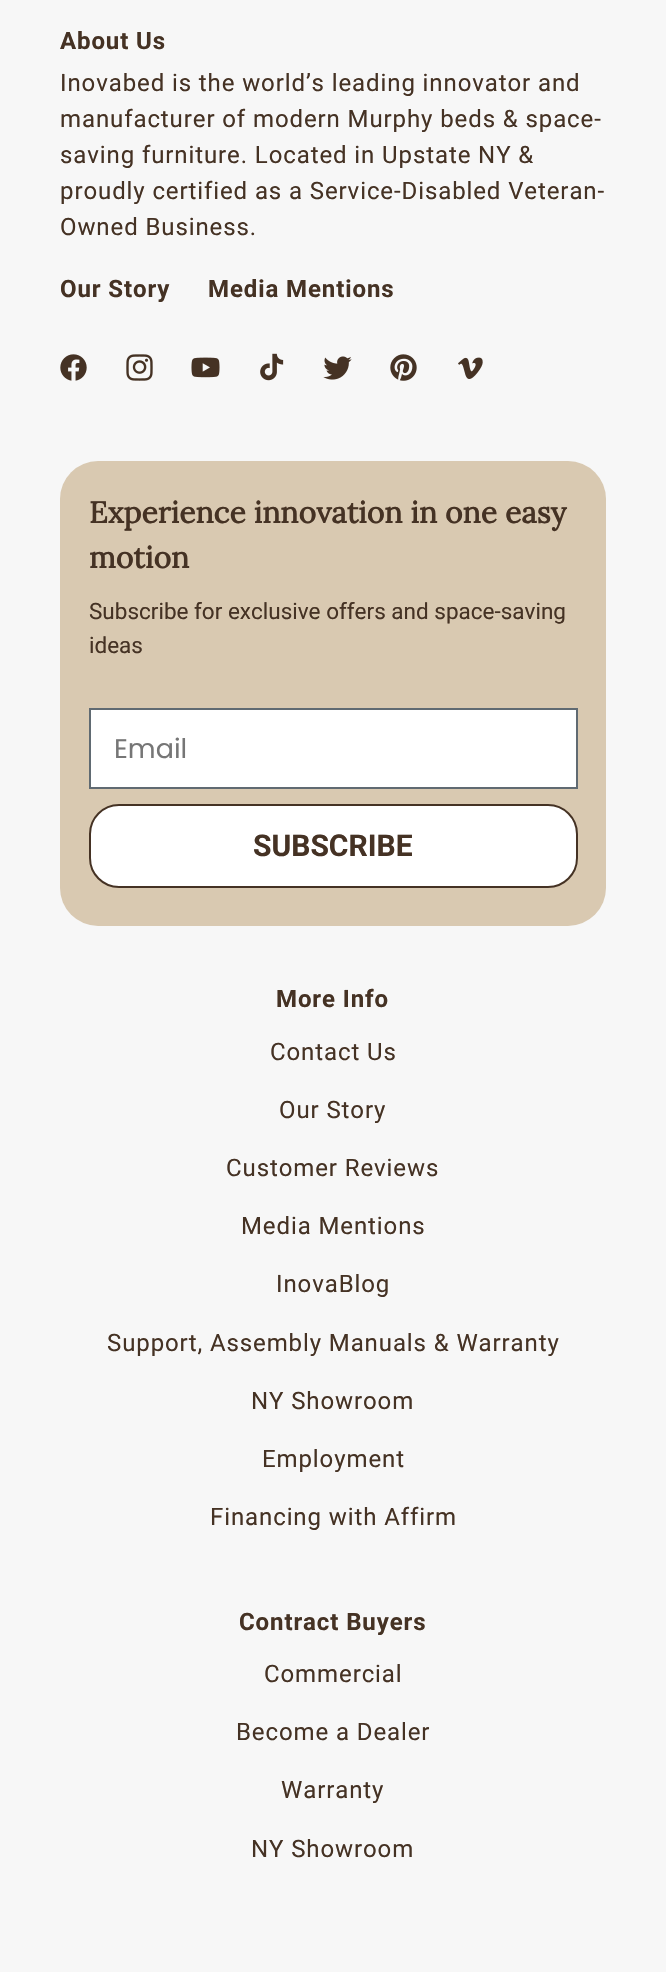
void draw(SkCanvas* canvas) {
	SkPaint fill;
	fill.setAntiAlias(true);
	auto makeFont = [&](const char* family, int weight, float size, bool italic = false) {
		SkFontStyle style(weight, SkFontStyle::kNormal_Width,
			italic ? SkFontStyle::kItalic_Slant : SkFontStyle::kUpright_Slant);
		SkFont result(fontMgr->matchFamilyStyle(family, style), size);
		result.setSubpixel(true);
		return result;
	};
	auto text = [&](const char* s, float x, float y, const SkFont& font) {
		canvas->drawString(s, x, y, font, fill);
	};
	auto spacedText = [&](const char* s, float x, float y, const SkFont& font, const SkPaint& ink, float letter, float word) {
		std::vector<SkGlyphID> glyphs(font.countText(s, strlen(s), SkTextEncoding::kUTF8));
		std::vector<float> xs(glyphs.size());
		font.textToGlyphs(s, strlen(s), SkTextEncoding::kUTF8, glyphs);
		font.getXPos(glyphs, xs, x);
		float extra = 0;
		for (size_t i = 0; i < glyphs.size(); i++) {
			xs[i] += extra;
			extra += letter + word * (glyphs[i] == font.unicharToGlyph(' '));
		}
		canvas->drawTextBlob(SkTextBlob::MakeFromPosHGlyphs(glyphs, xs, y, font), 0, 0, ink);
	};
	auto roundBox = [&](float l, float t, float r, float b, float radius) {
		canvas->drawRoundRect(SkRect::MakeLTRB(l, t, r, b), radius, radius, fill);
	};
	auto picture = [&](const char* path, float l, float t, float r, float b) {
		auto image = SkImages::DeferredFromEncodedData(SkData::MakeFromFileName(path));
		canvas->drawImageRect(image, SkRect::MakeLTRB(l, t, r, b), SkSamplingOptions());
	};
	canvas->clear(0xFFF7F7F7);
	picture("image0.png", 60, 354, 87, 381);
	picture("image1.png", 126, 354, 153, 381);
	picture("image2.png", 191, 357, 220, 378);
	picture("image3.png", 260, 353, 284, 381);
	picture("image4.png", 323, 356, 352, 380);
	picture("image5.png", 390, 354, 417, 381);
	picture("image6.png", 458, 357, 483, 379);
	fill.setColor(0xFFD9C9B1);
	roundBox(60, 461, 606, 926, 38);
	fill.setColor(0xFFFFFFFF);
	canvas->drawRect(SkRect::MakeLTRB(90, 709, 577, 788), fill);
	fill.setStyle(SkPaint::kStroke_Style);
	fill.setStrokeWidth(2);
	fill.setColor(0xFF606A72);
	canvas->drawRect(SkRect::MakeLTRB(90, 709, 577, 788), fill);
	fill.setStyle(SkPaint::kFill_Style);
	fill.setColor(0xFFFFFFFF);
	canvas->drawRoundRect(SkRect::MakeLTRB(90, 805, 577, 887), 29, 29, fill);
	fill.setStyle(SkPaint::kStroke_Style);
	fill.setColor(0xFF453224);
	canvas->drawRoundRect(SkRect::MakeLTRB(90, 805, 577, 887), 29, 29, fill);
	auto font1 = makeFont("Roboto", 700, 24);
	fill.setStyle(SkPaint::kFill_Style);
	spacedText("About Us", 60, 49, font1, fill, 0.9f, 0);
	auto font2 = makeFont("Roboto", 400, 24);
	spacedText("Inovabed is the world’s leading innovator and", 60, 91, font2, fill, 0.9f, 0);
	spacedText("manufacturer of modern Murphy beds & space-", 60, 127, font2, fill, 0.9f, 0);
	spacedText("saving furniture. Located in Upstate NY &", 60, 163, font2, fill, 0.9f, 0);
	spacedText("proudly certified as a Service-Disabled Veteran-", 60, 199, font2, fill, 0.9f, 0);
	spacedText("Owned Business.", 60, 235, font2, fill, 0.9f, 0);
	spacedText("Our Story", 60, 297, font1, fill, 0.9f, 0);
	spacedText("Media Mentions", 208, 297, font1, fill, 0.9f, 0);
	auto font3 = makeFont("Lora", 700, 30);
	text("Experience innovation in one easy", 89, 523, font3);
	text("motion", 89, 568, font3);
	auto font4 = makeFont("Roboto", 400, 22.5f);
	text("Subscribe for exclusive offers and space-saving", 89, 619, font4);
	text("ideas", 89, 653, font4);
	auto font5 = makeFont("Poppins", 400, 27);
	fill.setColor(0xFF767676);
	text("Email", 114, 758, font5);
	auto font6 = makeFont("Roboto", 700, 30);
	fill.setColor(0xFF453224);
	text("SUBSCRIBE", 253, 856, font6);
	spacedText("More Info", 276, 1007, font1, fill, 0.9f, 0);
	spacedText("Contact Us", 270, 1060, font2, fill, 0.9f, 0);
	spacedText("Our Story", 279, 1118, font2, fill, 0.9f, 0);
	spacedText("Customer Reviews", 226, 1176, font2, fill, 0.9f, 0);
	spacedText("Media Mentions", 241, 1234, font2, fill, 0.9f, 0);
	spacedText("InovaBlog", 276, 1292, font2, fill, 0.9f, 0);
	spacedText("Support, Assembly Manuals & Warranty", 107, 1351, font2, fill, 0.9f, 0);
	spacedText("NY Showroom", 251, 1409, font2, fill, 0.9f, 0);
	spacedText("Employment", 262, 1467, font2, fill, 0.9f, 0);
	spacedText("Financing with Affirm", 210, 1525, font2, fill, 0.9f, 0);
	spacedText("Contract Buyers", 239, 1630, font1, fill, 0.9f, 0);
	spacedText("Commercial", 264, 1682, font2, fill, 0.9f, 0);
	spacedText("Become a Dealer", 236, 1740, font2, fill, 0.9f, 0);
	spacedText("Warranty", 281, 1798, font2, fill, 0.9f, 0);
	spacedText("NY Showroom", 251, 1857, font2, fill, 0.9f, 0);
}
